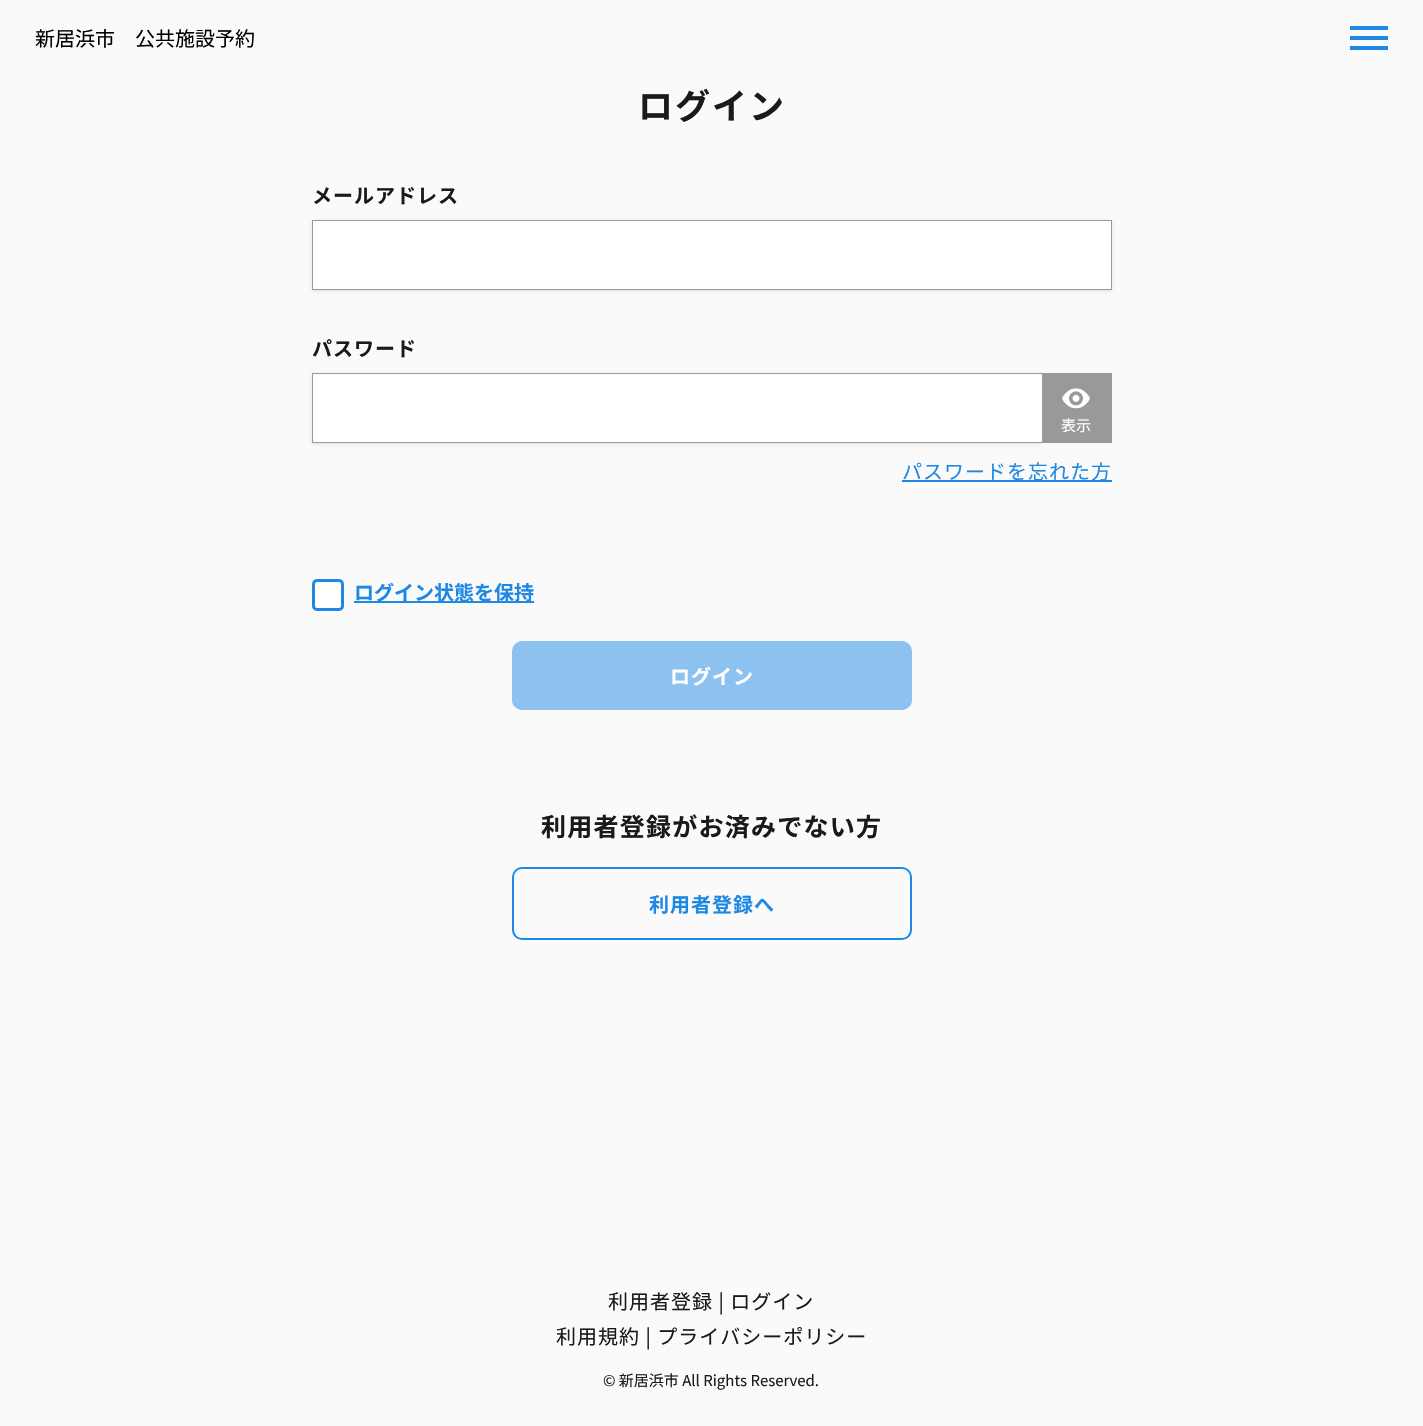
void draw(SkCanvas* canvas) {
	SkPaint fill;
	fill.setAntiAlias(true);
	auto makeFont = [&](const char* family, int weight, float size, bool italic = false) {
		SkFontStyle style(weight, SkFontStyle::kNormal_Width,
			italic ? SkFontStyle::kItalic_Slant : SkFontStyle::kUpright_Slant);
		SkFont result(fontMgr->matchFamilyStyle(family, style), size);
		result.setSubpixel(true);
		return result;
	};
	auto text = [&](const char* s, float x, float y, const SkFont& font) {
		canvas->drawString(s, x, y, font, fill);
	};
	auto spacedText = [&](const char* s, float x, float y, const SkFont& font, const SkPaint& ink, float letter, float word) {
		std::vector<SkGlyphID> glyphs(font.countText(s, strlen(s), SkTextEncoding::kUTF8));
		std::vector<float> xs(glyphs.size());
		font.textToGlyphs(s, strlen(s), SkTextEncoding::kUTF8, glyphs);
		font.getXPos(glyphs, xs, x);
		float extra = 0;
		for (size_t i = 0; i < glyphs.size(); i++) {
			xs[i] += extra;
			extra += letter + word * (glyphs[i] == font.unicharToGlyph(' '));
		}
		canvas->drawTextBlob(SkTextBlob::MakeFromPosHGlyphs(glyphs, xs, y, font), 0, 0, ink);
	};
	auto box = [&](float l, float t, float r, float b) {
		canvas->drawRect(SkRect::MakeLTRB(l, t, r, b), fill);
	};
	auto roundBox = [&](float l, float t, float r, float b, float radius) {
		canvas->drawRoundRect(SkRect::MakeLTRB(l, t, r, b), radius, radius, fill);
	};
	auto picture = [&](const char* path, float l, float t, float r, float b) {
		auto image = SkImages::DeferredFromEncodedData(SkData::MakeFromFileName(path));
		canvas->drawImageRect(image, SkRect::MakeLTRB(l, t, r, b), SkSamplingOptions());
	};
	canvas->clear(0xFFFAFAFA);
	fill.setColor(0xFF1E88E5);
	box(1350, 26, 1388, 30);
	box(1350, 36, 1388, 40);
	box(1350, 46, 1388, 50);
	fill.setColor(0x1A000000);
	fill.setMaskFilter(SkMaskFilter::MakeBlur(kNormal_SkBlurStyle, 1.5f));
	canvas->drawRect(SkRect::MakeLTRB(312, 221, 1112, 291), fill);
	fill.setMaskFilter(nullptr);
	fill.setColor(0xFFFFFFFF);
	canvas->drawRect(SkRect::MakeLTRB(312.5f, 220.5f, 1111.5f, 289.5f), fill);
	fill.setStyle(SkPaint::kStroke_Style);
	fill.setStrokeWidth(1);
	fill.setColor(0xFF999999);
	canvas->drawRect(SkRect::MakeLTRB(312.5f, 220.5f, 1111.5f, 289.5f), fill);
	fill.setStyle(SkPaint::kFill_Style);
	fill.setColor(0x1A000000);
	fill.setMaskFilter(SkMaskFilter::MakeBlur(kNormal_SkBlurStyle, 1.5f));
	canvas->drawRect(SkRect::MakeLTRB(312, 374, 1042, 444), fill);
	fill.setMaskFilter(nullptr);
	fill.setColor(0xFFFFFFFF);
	box(313, 374, 1042, 442);
	fill.setColor(0xFF999999);
	box(312, 373, 1042, 374);
	box(312, 442, 1042, 443);
	box(312, 373, 313, 443);
	box(1042, 373, 1112, 443);
	picture("image0.png", 1062, 388, 1090, 409);
	fill.setColor(0xFF1E88E5);
	box(902, 480, 1112, 482);
	fill.setColor(0xFFFFFFFF);
	canvas->drawRoundRect(SkRect::MakeLTRB(313.5f, 580.5f, 342.5f, 609.5f), 3.5f, 3.5f, fill);
	fill.setStyle(SkPaint::kStroke_Style);
	fill.setStrokeWidth(3);
	fill.setColor(0xFF1E88E5);
	canvas->drawRoundRect(SkRect::MakeLTRB(313.5f, 580.5f, 342.5f, 609.5f), 3.5f, 3.5f, fill);
	fill.setStyle(SkPaint::kFill_Style);
	box(354, 601, 534, 603);
	fill.setColor(0xFF8CC1F0);
	roundBox(512, 641, 912, 710, 10);
	fill.setStyle(SkPaint::kStroke_Style);
	fill.setStrokeWidth(2);
	fill.setColor(0xFF1E88E5);
	canvas->drawRoundRect(SkRect::MakeLTRB(513, 868, 911, 939), 9, 9, fill);
	auto font1 = makeFont("Noto Sans JP", 400, 20);
	fill.setStyle(SkPaint::kFill_Style);
	fill.setColor(0xFF000000);
	text("新居浜市　公共施設予約", 35, 46, font1);
	auto font2 = makeFont("Noto Sans JP", 700, 35);
	fill.setColor(0xFF1A1A1A);
	spacedText("ログイン", 638, 119, font2, fill, 2, 0);
	auto font3 = makeFont("Noto Sans JP", 700, 20);
	spacedText("メールアドレス", 312, 203, font3, fill, 1, 0);
	spacedText("パスワード", 312, 356, font3, fill, 1, 0);
	auto font4 = makeFont("Noto Sans JP", 400, 15);
	fill.setColor(0xFFFFFFFF);
	text("表示", 1061, 431, font4);
	fill.setColor(0xFF1E88E5);
	spacedText("パスワードを忘れた方", 902, 479, font1, fill, 1, 0);
	text("ログイン状態を保持", 354, 600, font3);
	fill.setColor(0xFFFFFFFF);
	spacedText("ログイン", 670, 684, font3, fill, 1, 0);
	auto font5 = makeFont("Noto Sans JP", 700, 25);
	fill.setColor(0xFF1A1A1A);
	spacedText("利用者登録がお済みでない方", 541, 836, font5, fill, 1.25f, 0);
	fill.setColor(0xFF1E88E5);
	spacedText("利用者登録へ", 649, 912, font3, fill, 1, 0);
	fill.setColor(0xFF1A1A1A);
	spacedText("利用者登録 | ログイン", 608, 1309, font1, fill, 1, 0);
	spacedText("利用規約 | プライバシーポリシー", 556, 1344, font1, fill, 1, 0);
	text("© 新居浜市 All Rights Reserved.", 603, 1386, font4);
}
